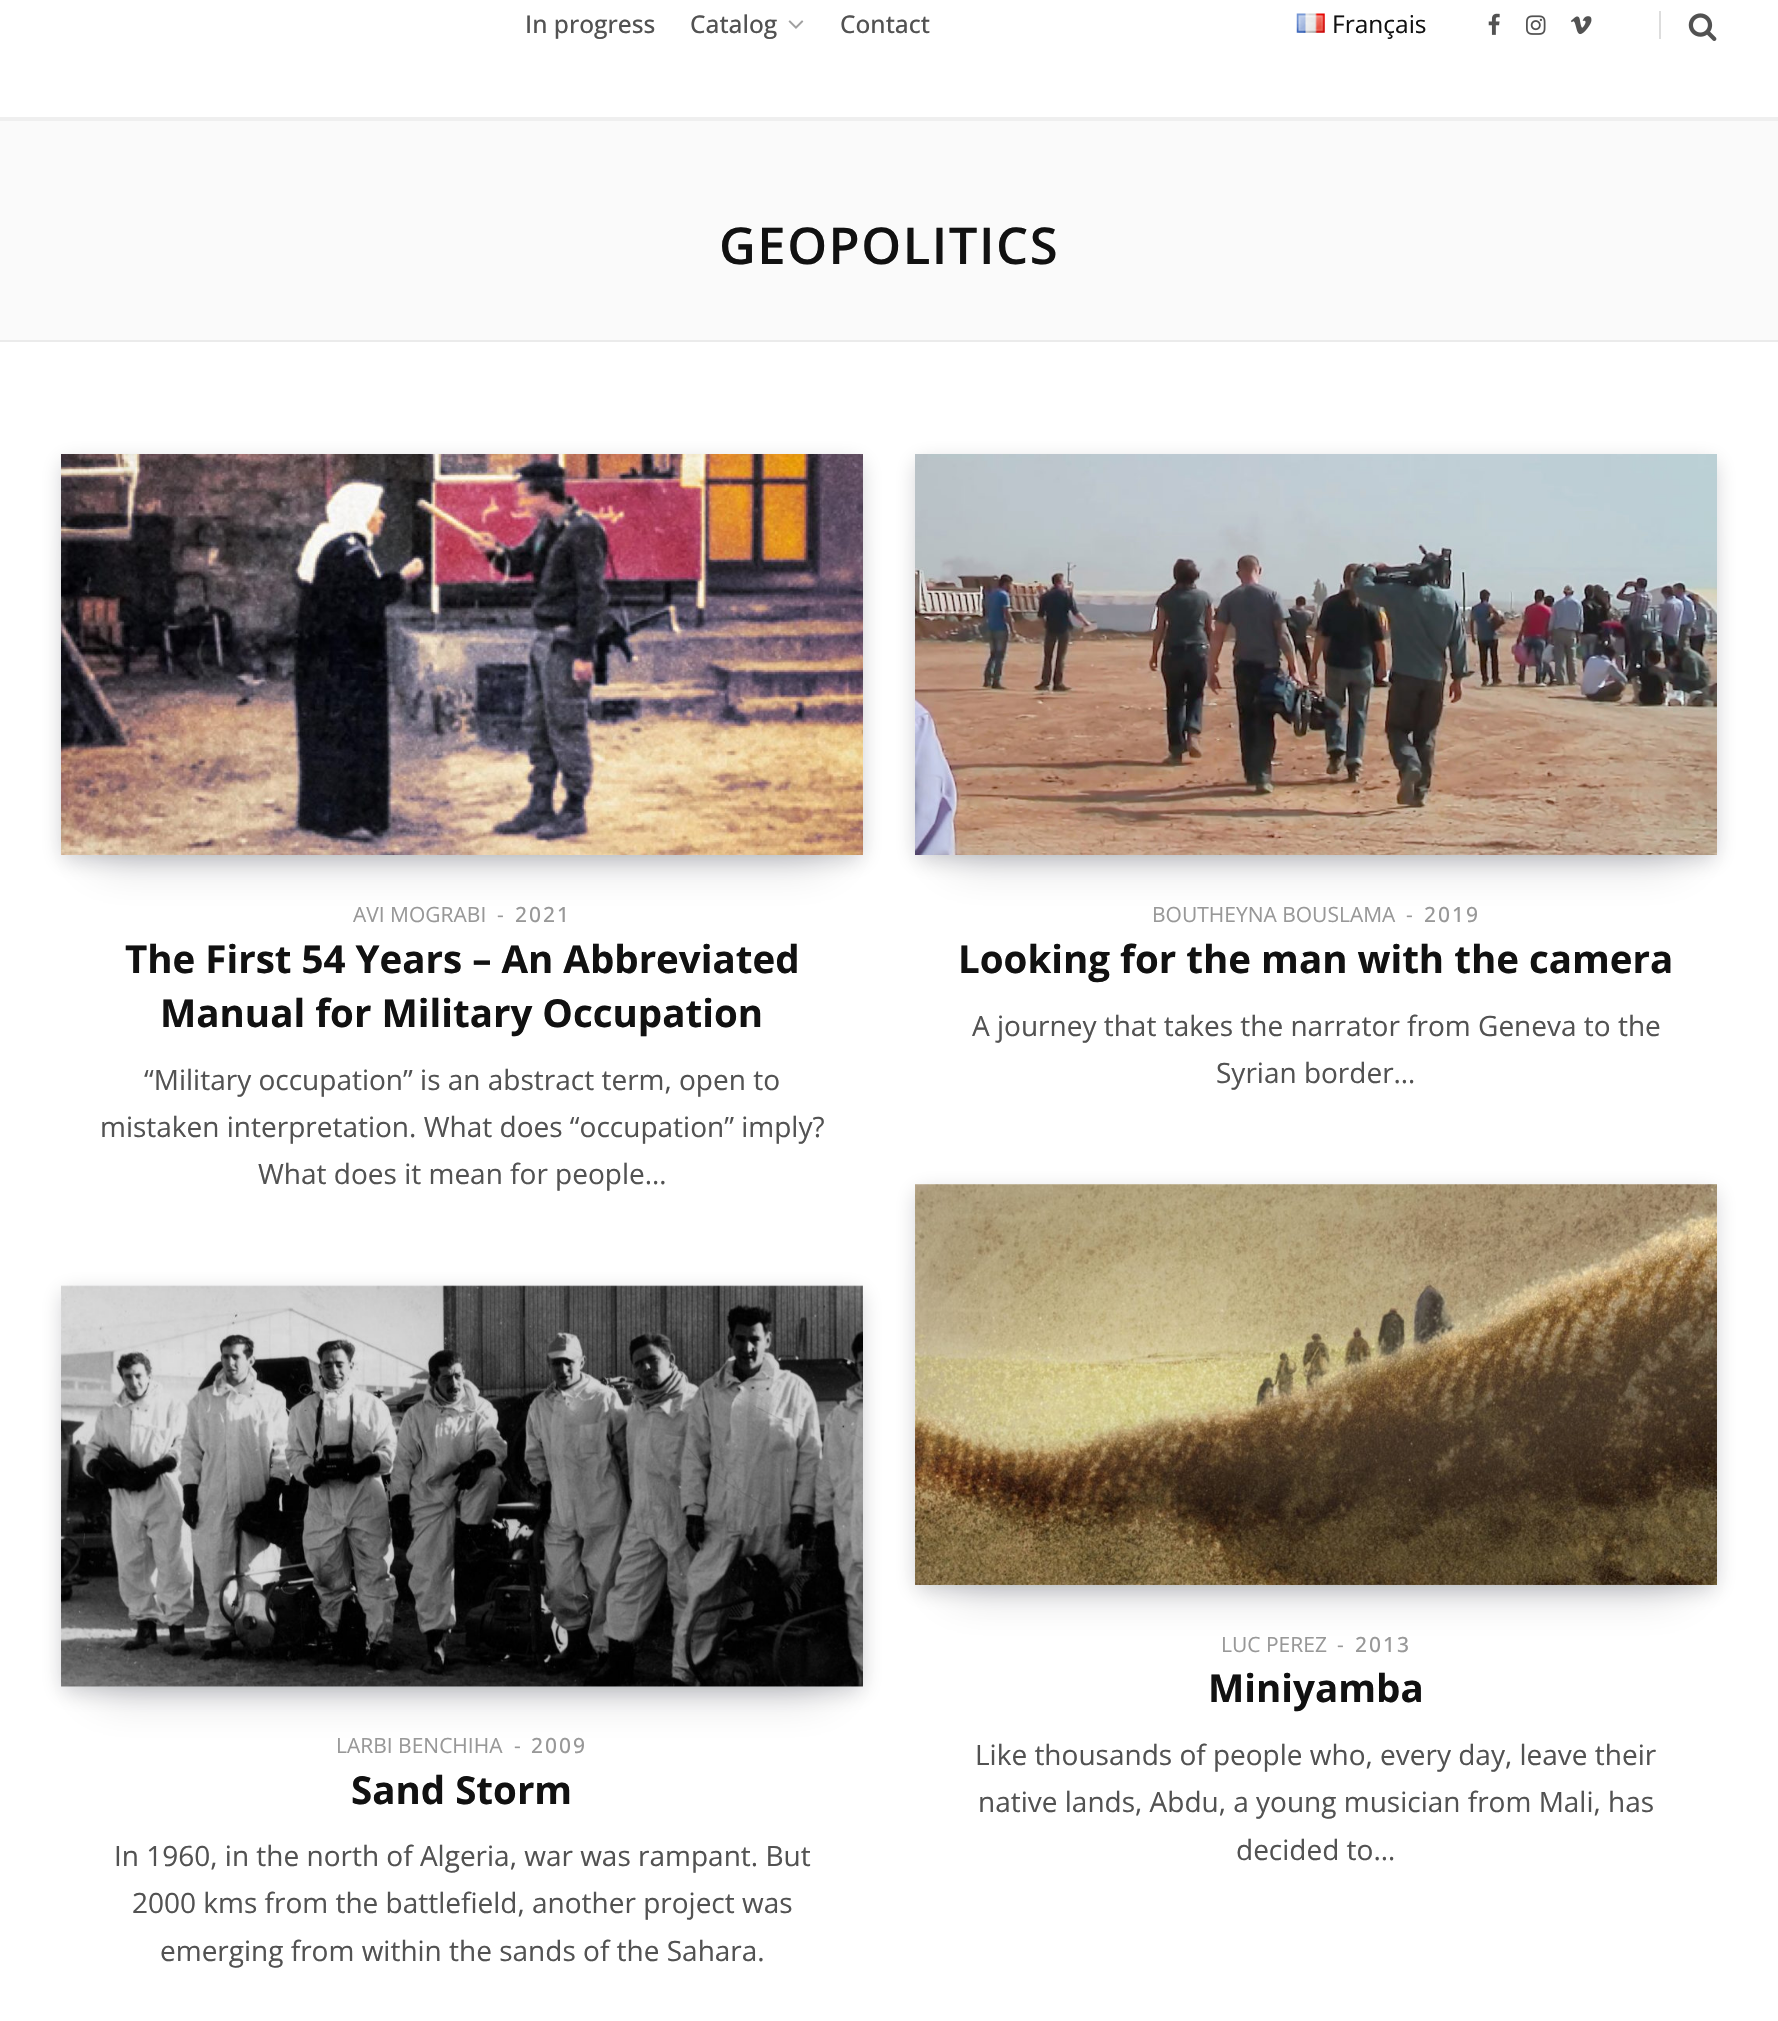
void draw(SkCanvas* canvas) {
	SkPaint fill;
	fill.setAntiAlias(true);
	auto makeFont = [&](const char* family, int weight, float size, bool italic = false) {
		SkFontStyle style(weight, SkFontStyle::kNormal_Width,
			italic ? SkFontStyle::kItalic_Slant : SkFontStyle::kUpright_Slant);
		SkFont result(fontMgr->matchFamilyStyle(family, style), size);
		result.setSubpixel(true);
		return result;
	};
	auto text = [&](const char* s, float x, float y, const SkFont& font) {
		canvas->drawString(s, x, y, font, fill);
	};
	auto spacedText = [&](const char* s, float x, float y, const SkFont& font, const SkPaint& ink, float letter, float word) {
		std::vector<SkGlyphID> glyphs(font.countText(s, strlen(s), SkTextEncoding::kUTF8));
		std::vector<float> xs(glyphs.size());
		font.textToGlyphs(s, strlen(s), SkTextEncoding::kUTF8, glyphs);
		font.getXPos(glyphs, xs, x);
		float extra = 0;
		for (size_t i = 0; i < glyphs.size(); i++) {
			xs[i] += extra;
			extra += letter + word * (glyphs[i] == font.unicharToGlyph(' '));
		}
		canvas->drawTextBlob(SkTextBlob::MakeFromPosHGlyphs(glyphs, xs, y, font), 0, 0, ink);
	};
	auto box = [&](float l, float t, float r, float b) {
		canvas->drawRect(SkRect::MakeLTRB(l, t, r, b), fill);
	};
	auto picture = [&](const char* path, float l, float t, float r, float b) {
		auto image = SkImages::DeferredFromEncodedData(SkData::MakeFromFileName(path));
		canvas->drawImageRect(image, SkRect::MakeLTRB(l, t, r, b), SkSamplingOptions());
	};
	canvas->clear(0xFFFFFFFF);
	fill.setColor(0xFFEFEFEF);
	box(0, 117, 1778, 121);
	picture("image0.png", 788, 20, 804, 29);
	picture("image1.png", 1296, 13, 1325, 33);
	picture("image2.png", 1488, 13, 1500, 35);
	picture("image3.png", 1526, 15, 1546, 35);
	picture("image4.png", 1570, 16, 1592, 35);
	fill.setColor(0xFFDDDDDD);
	box(1659, 11, 1661, 39);
	picture("image5.png", 1688, 13, 1717, 41);
	fill.setColor(0xFFFAFAFA);
	box(0, 121, 1778, 340);
	fill.setColor(0xFFEBEBEB);
	box(0, 340, 1778, 342);
	fill.setColor(0x33070A19);
	fill.setMaskFilter(SkMaskFilter::MakeBlur(kNormal_SkBlurStyle, 23.5f));
	canvas->drawRect(SkRect::MakeLTRB(96, 529, 828, 859), fill);
	fill.setMaskFilter(nullptr);
	fill.setMaskFilter(SkMaskFilter::MakeBlur(kNormal_SkBlurStyle, 10.5f));
	canvas->drawRect(SkRect::MakeLTRB(63, 462, 861, 859), fill);
	fill.setMaskFilter(nullptr);
	picture("image6.png", 61, 454, 863, 855);
	fill.setMaskFilter(SkMaskFilter::MakeBlur(kNormal_SkBlurStyle, 23.5f));
	canvas->drawRect(SkRect::MakeLTRB(950, 529, 1682, 859), fill);
	fill.setMaskFilter(nullptr);
	fill.setMaskFilter(SkMaskFilter::MakeBlur(kNormal_SkBlurStyle, 10.5f));
	canvas->drawRect(SkRect::MakeLTRB(917, 462, 1715, 859), fill);
	fill.setMaskFilter(nullptr);
	picture("image7.png", 915, 454, 1717, 855);
	fill.setMaskFilter(SkMaskFilter::MakeBlur(kNormal_SkBlurStyle, 23.5f));
	canvas->drawRect(SkRect::MakeLTRB(96, 1360, 828, 1691), fill);
	fill.setMaskFilter(nullptr);
	fill.setMaskFilter(SkMaskFilter::MakeBlur(kNormal_SkBlurStyle, 10.5f));
	canvas->drawRect(SkRect::MakeLTRB(63, 1293, 861, 1691), fill);
	fill.setMaskFilter(nullptr);
	picture("image8.png", 61, 1285, 863, 1687);
	fill.setMaskFilter(SkMaskFilter::MakeBlur(kNormal_SkBlurStyle, 23.5f));
	canvas->drawRect(SkRect::MakeLTRB(950, 1258, 1682, 1589), fill);
	fill.setMaskFilter(nullptr);
	fill.setMaskFilter(SkMaskFilter::MakeBlur(kNormal_SkBlurStyle, 10.5f));
	canvas->drawRect(SkRect::MakeLTRB(917, 1192, 1715, 1589), fill);
	fill.setMaskFilter(nullptr);
	picture("image9.png", 915, 1184, 1717, 1585);
	auto font1 = makeFont("Open Sans", 500, 24.5f);
	fill.setColor(0xFF525252);
	text("In progress", 525, 33, font1);
	text("Catalog", 690, 33, font1);
	text("Contact", 840, 33, font1);
	auto font2 = makeFont("Open Sans", 400, 24.5f);
	fill.setColor(0xFF111111);
	text("Français", 1332, 33, font2);
	auto font3 = makeFont("Open Sans", 600, 50.75f);
	spacedText("GEOPOLITICS", 719, 264, font3, fill, 1.5f, 0);
	auto font4 = makeFont("Open Sans", 400, 21);
	fill.setColor(0xFF989898);
	text("AVI MOGRABI", 353, 922, font4);
	text("-", 497, 922, font4);
	auto font5 = makeFont("Open Sans", 500, 21);
	spacedText("2021", 515, 922, font5, fill, 2, 0);
	auto font6 = makeFont("Open Sans", 700, 38.5f);
	fill.setColor(0xFF111111);
	text("The First 54 Years – An Abbreviated", 125, 973, font6);
	text("Manual for Military Occupation", 160, 1027, font6);
	auto font7 = makeFont("Open Sans", 400, 28);
	fill.setColor(0xFF525252);
	text("“Military occupation” is an abstract term, open to", 144, 1090, font7);
	text("mistaken interpretation. What does “occupation” imply?", 100, 1137, font7);
	text("What does it mean for people…", 258, 1184, font7);
	fill.setColor(0xFF989898);
	text("BOUTHEYNA BOUSLAMA", 1152, 922, font4);
	text("-", 1406, 922, font4);
	spacedText("2019", 1424, 922, font5, fill, 2, 0);
	fill.setColor(0xFF111111);
	text("Looking for the man with the camera", 958, 973, font6);
	fill.setColor(0xFF525252);
	text("A journey that takes the narrator from Geneva to the", 972, 1036, font7);
	text("Syrian border…", 1216, 1083, font7);
	fill.setColor(0xFF989898);
	text("LARBI BENCHIHA", 336, 1753, font4);
	text("-", 514, 1753, font4);
	spacedText("2009", 531, 1753, font5, fill, 2, 0);
	fill.setColor(0xFF111111);
	text("Sand Storm", 351, 1804, font6);
	fill.setColor(0xFF525252);
	text("In 1960, in the north of Algeria, war was rampant. But", 114, 1866, font7);
	text("2000 kms from the battlefield, another project was", 132, 1913, font7);
	text("emerging from within the sands of the Sahara.", 160, 1961, font7);
	fill.setColor(0xFF989898);
	text("LUC PEREZ", 1221, 1652, font4);
	text("-", 1337, 1652, font4);
	spacedText("2013", 1355, 1652, font5, fill, 2, 0);
	fill.setColor(0xFF111111);
	text("Miniyamba", 1208, 1702, font6);
	fill.setColor(0xFF525252);
	text("Like thousands of people who, every day, leave their", 975, 1765, font7);
	text("native lands, Abdu, a young musician from Mali, has", 978, 1812, font7);
	text("decided to…", 1236, 1860, font7);
}
